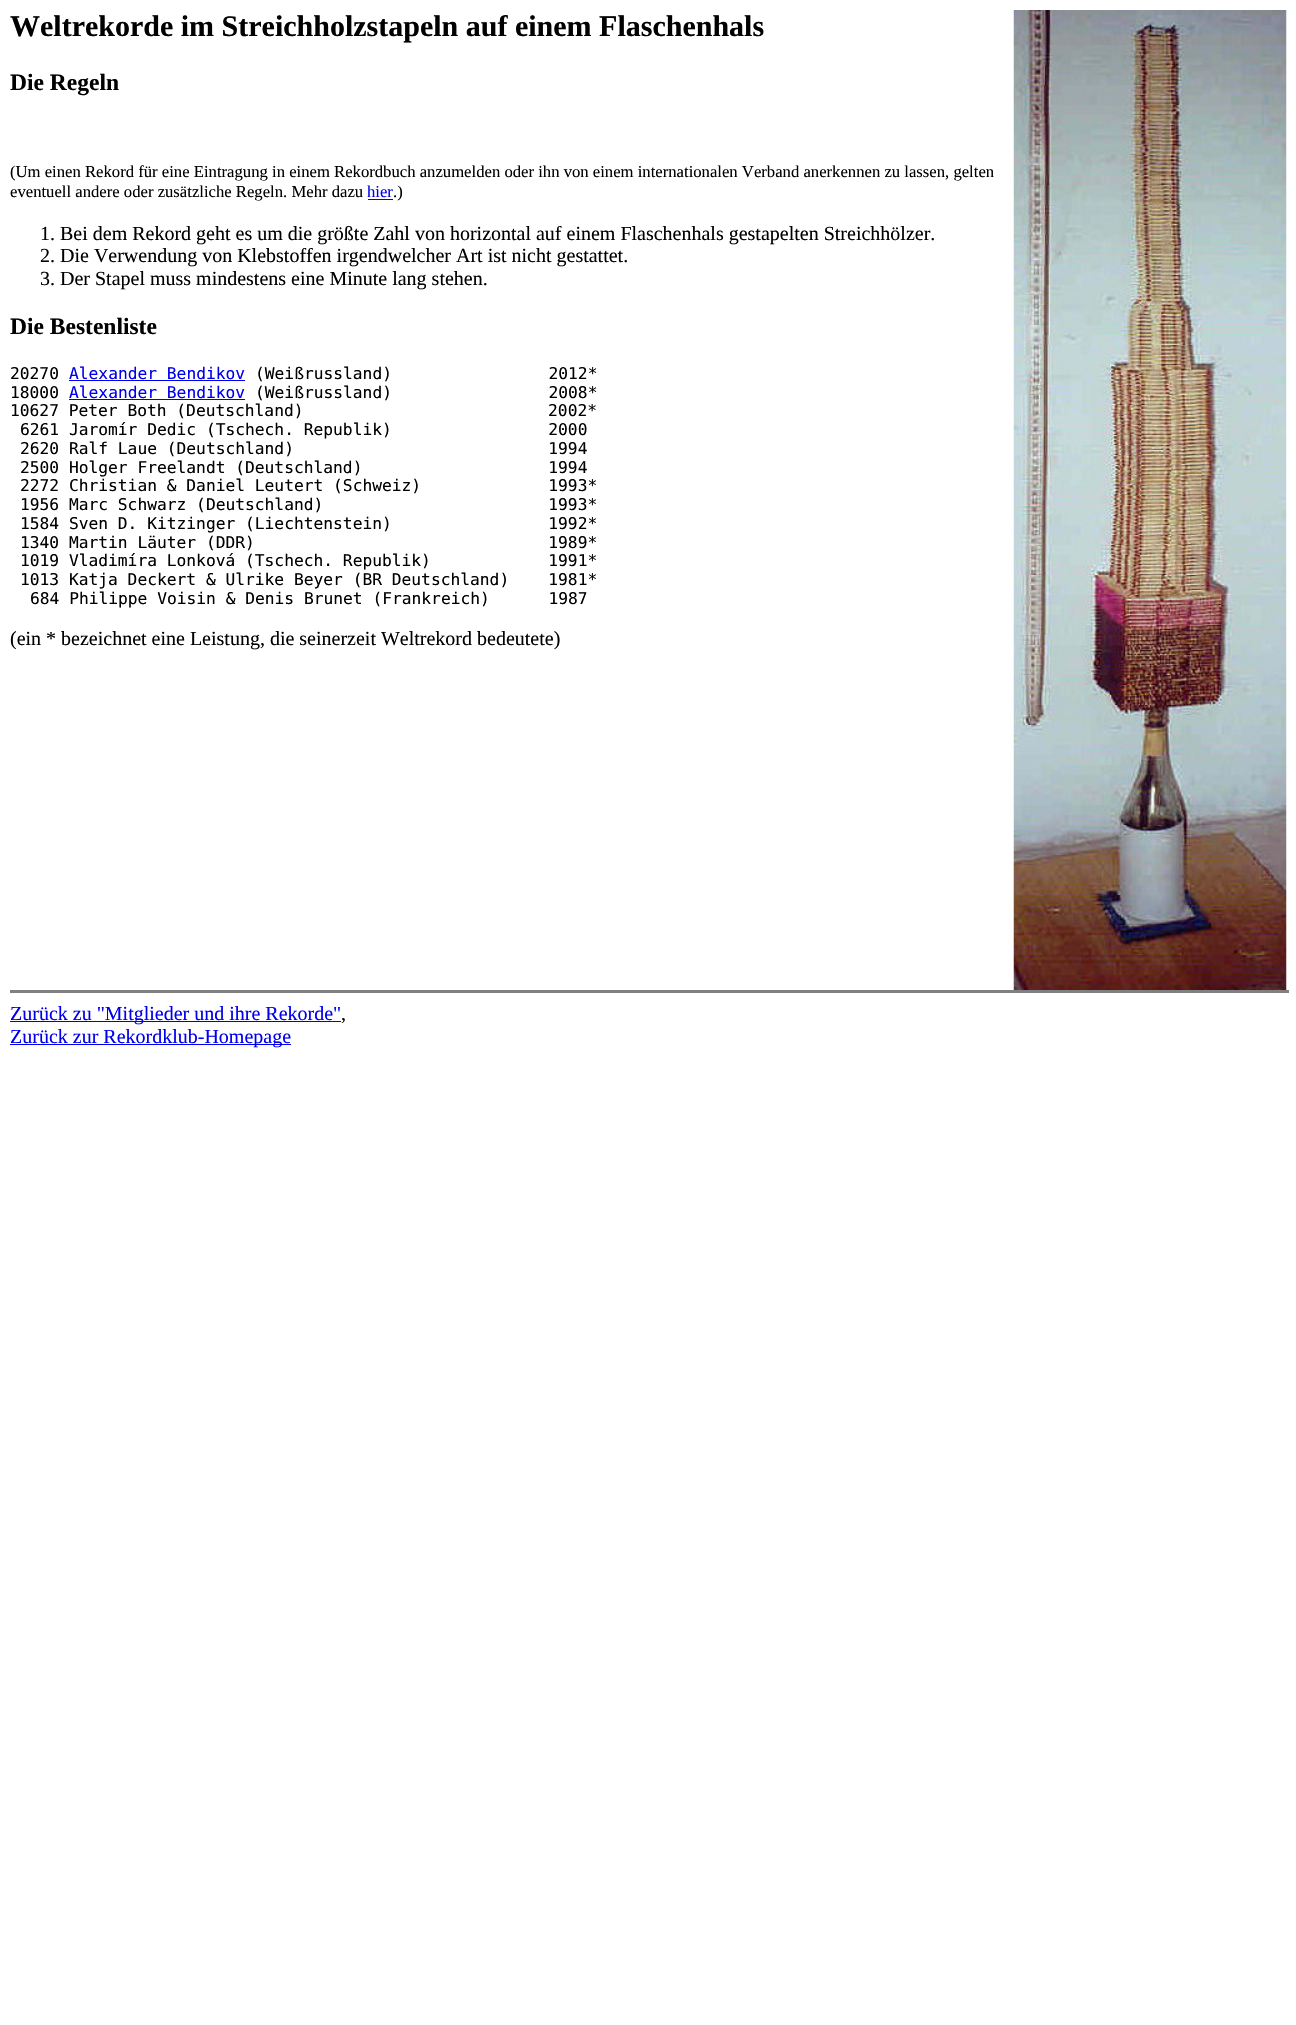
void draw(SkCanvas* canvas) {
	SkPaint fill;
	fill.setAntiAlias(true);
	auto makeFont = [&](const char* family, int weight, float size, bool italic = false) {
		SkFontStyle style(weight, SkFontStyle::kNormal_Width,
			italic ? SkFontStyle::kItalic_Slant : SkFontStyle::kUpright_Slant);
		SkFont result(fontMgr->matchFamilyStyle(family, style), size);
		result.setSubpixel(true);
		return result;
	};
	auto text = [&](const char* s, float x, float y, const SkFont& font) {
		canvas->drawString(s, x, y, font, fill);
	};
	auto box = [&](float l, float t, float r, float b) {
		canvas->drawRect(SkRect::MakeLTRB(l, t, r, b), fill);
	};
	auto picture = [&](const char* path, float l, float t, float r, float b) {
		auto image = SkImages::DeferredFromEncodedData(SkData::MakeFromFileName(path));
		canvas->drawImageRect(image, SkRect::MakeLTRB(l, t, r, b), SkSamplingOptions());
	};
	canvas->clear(0xFFFFFFFF);
	picture("image0.png", 1013, 10, 1287, 990);
	fill.setColor(0xFF0000EE);
	box(368, 199, 393, 200);
	box(69, 380, 245, 381);
	box(69, 399, 245, 400);
	fill.setColor(0xFF808080);
	box(10, 990, 1289, 993);
	fill.setColor(0xFF0000EE);
	box(10, 1021, 341, 1022);
	box(10, 1044, 291, 1045);
	auto font1 = makeFont("Liberation Serif", 700, 30);
	fill.setColor(0xFF000000);
	text("Weltrekorde im Streichholzstapeln auf einem Flaschenhals", 10, 36, font1);
	auto font2 = makeFont("Liberation Serif", 700, 23.5f);
	text("Die Regeln", 10, 90, font2);
	auto font3 = makeFont("Liberation Serif", 400, 16.67f);
	text("(Um einen Rekord für eine Eintragung in einem Rekordbuch anzumelden oder ihn von einem internationalen Verband anerkennen zu lassen, gelten", 10, 177, font3);
	text("eventuell andere oder zusätzliche Regeln. Mehr dazu", 10, 197, font3);
	fill.setColor(0xFF0000EE);
	text("hier", 367, 197, font3);
	fill.setColor(0xFF000000);
	text(".)", 393, 197, font3);
	auto font4 = makeFont("Liberation Serif", 400, 20);
	text("1. Bei dem Rekord geht es um die größte Zahl von horizontal auf einem Flaschenhals gestapelten Streichhölzer.", 40, 240, font4);
	text("2. Die Verwendung von Klebstoffen irgendwelcher Art ist nicht gestattet.", 40, 262, font4);
	text("3. Der Stapel muss mindestens eine Minute lang stehen.", 40, 285, font4);
	text("Die Bestenliste", 10, 334, font2);
	auto font5 = makeFont("DejaVu Sans Mono", 400, 16.25f);
	text("20270", 10, 379, font5);
	fill.setColor(0xFF0000EE);
	text("Alexander Bendikov", 69, 379, font5);
	fill.setColor(0xFF000000);
	text("(Weißrussland)                2012*", 255, 379, font5);
	text("18000", 10, 398, font5);
	fill.setColor(0xFF0000EE);
	text("Alexander Bendikov", 69, 398, font5);
	fill.setColor(0xFF000000);
	text("(Weißrussland)                2008*", 255, 398, font5);
	text("10627 Peter Both (Deutschland)                         2002*", 10, 416, font5);
	text("6261 Jaromír Dedic (Tschech. Republik)                2000", 20, 435, font5);
	text("2620 Ralf Laue (Deutschland)                          1994", 20, 454, font5);
	text("2500 Holger Freelandt (Deutschland)                   1994", 20, 473, font5);
	text("2272 Christian & Daniel Leutert (Schweiz)             1993*", 20, 491, font5);
	text("1956 Marc Schwarz (Deutschland)                       1993*", 20, 510, font5);
	text("1584 Sven D. Kitzinger (Liechtenstein)                1992*", 20, 529, font5);
	text("1340 Martin Läuter (DDR)                              1989*", 20, 548, font5);
	text("1019 Vladimíra Lonková (Tschech. Republik)            1991*", 20, 566, font5);
	text("1013 Katja Deckert & Ulrike Beyer (BR Deutschland)    1981*", 20, 585, font5);
	text("684 Philippe Voisin & Denis Brunet (Frankreich)      1987", 30, 604, font5);
	text("(ein * bezeichnet eine Leistung, die seinerzeit Weltrekord bedeutete)", 10, 645, font4);
	fill.setColor(0xFF0000EE);
	text("Zurück zu \"Mitglieder und ihre Rekorde\"", 10, 1020, font4);
	fill.setColor(0xFF000000);
	text(",", 341, 1020, font4);
	fill.setColor(0xFF0000EE);
	text("Zurück zur Rekordklub-Homepage", 10, 1043, font4);
}
